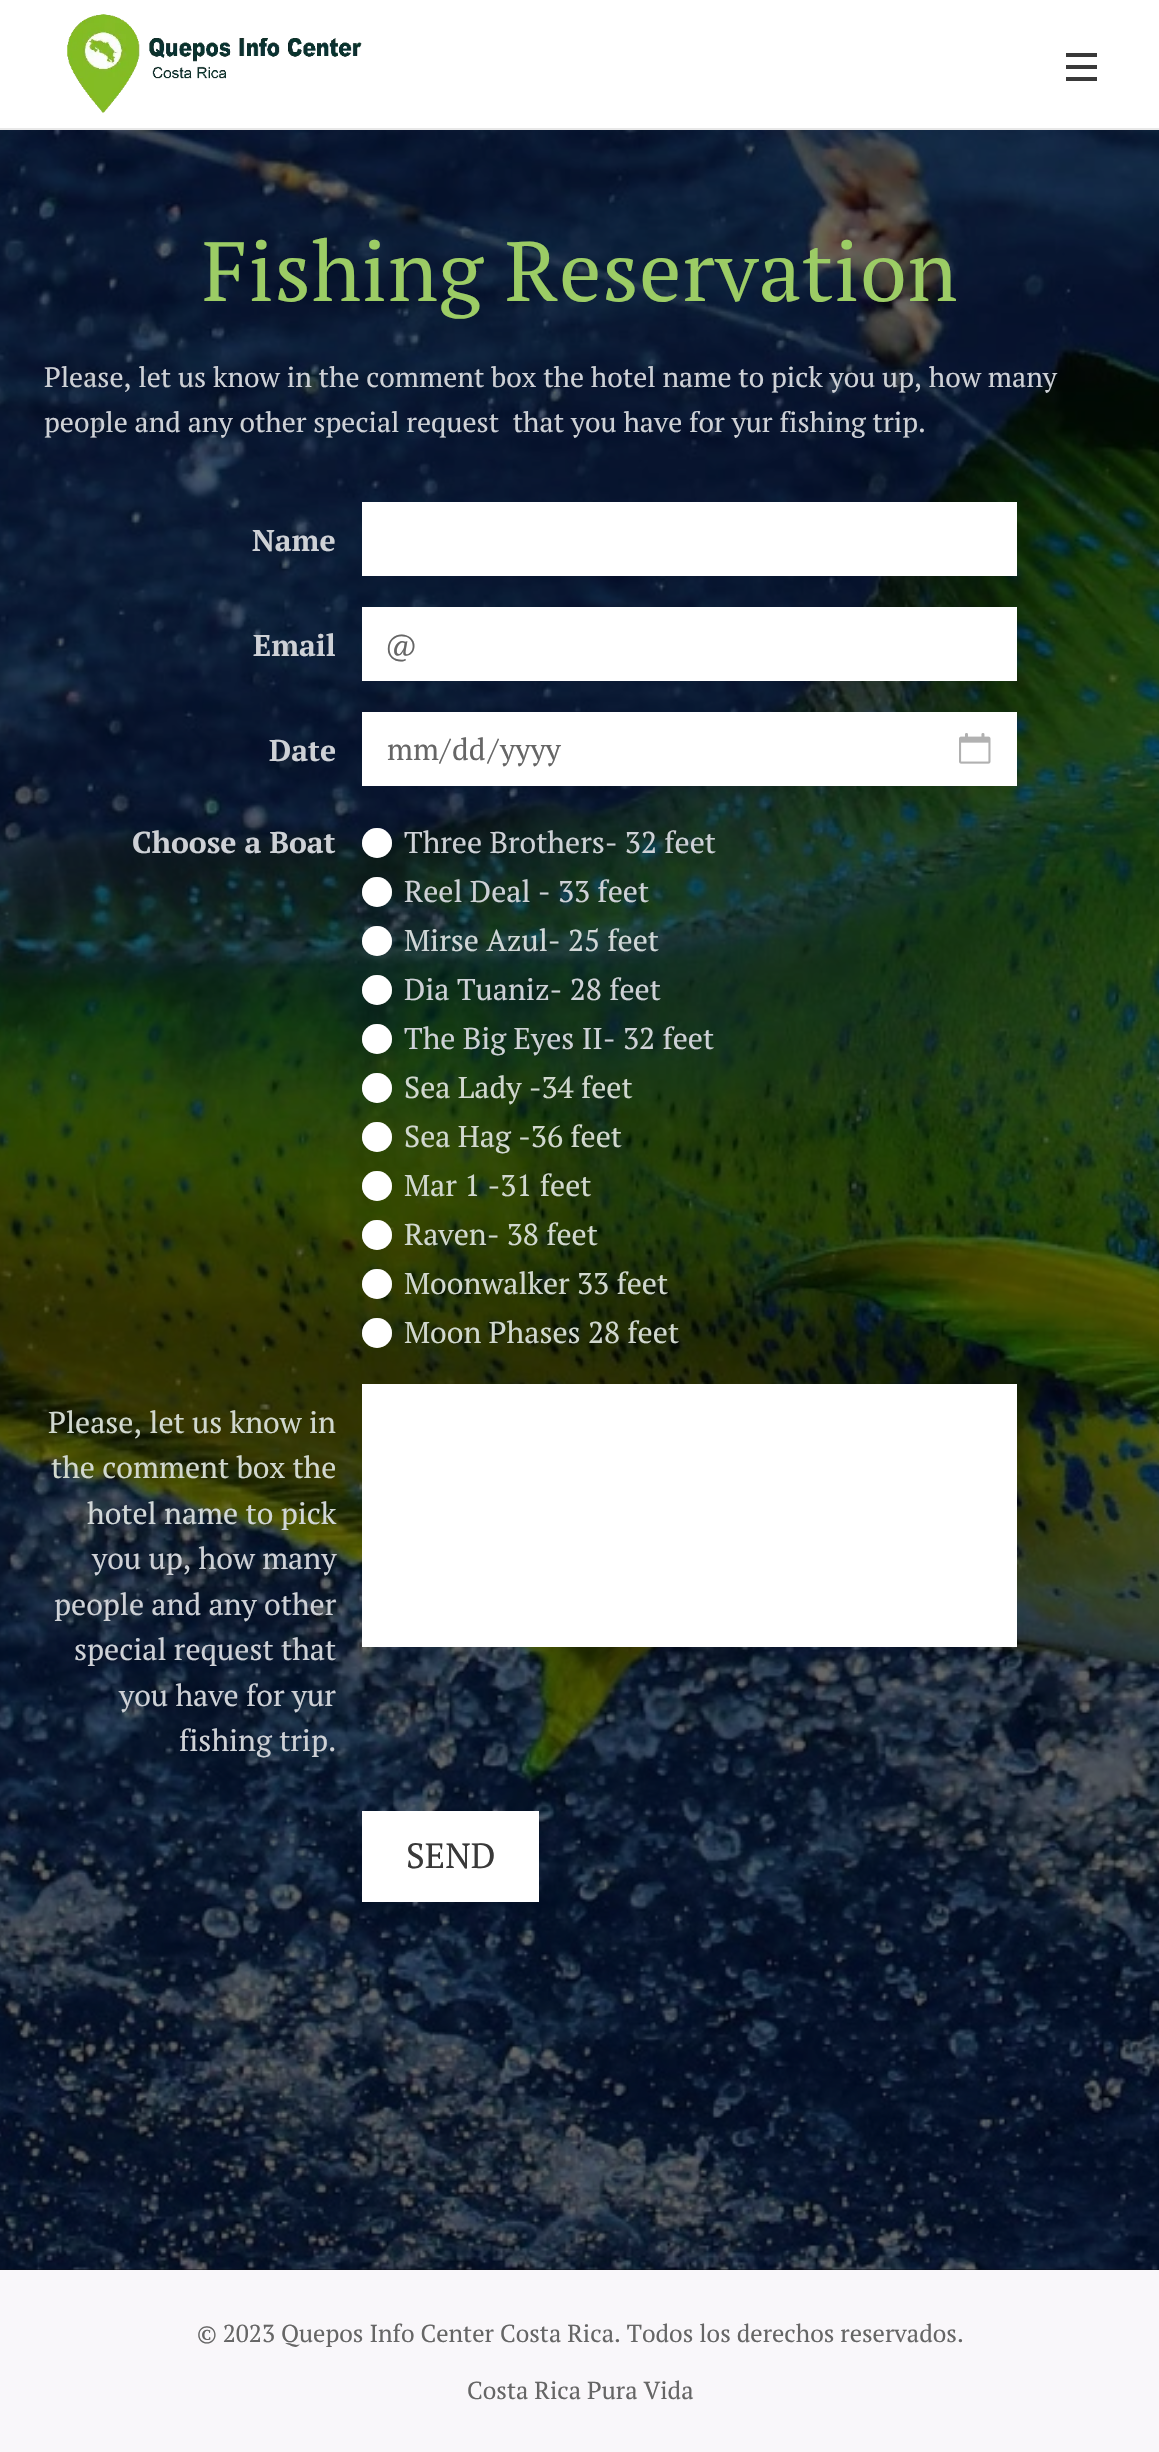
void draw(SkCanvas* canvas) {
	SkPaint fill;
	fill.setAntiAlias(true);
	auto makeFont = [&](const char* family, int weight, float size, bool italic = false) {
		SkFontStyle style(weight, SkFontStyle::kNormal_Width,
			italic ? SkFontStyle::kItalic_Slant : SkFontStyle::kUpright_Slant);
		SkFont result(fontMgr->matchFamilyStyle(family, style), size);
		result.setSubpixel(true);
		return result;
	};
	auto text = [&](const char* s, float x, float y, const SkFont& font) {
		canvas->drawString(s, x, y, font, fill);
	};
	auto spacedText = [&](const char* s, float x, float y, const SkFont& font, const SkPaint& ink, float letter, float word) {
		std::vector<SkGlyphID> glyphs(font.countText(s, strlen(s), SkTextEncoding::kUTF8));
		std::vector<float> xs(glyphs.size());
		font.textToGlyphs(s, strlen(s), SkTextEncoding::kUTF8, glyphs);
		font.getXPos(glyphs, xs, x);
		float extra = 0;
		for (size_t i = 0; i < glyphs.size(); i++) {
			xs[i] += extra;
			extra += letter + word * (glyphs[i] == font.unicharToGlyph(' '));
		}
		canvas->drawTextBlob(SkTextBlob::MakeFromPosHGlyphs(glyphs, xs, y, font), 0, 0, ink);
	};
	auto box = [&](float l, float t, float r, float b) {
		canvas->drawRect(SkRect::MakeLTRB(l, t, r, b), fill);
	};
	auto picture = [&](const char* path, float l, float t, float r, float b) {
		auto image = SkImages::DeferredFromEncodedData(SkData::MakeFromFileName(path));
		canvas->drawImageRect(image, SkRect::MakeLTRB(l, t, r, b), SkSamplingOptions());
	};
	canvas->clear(0xFFF9F7FA);
	fill.setColor(0xFFFFFFFF);
	box(0, 0, 1159, 128);
	picture("image0.png", 67, 14, 362, 113);
	fill.setColor(0xFF393939);
	box(1066, 65, 1097, 69);
	box(1066, 53, 1097, 57);
	box(1066, 77, 1097, 81);
	fill.setColor(0xFFE8E8E8);
	box(0, 128, 1159, 130);
	fill.setColor(0xFF101010);
	box(0, 2269, 1159, 2270);
	picture("image1.png", 0, 130, 1159, 2270);
	fill.setColor(0xFFFFFFFF);
	box(362, 502, 1017, 576);
	box(362, 607, 1017, 681);
	box(362, 712, 1017, 786);
	picture("image2.png", 959, 733, 991, 764);
	canvas->drawCircle(377, 843, 15, fill);
	fill.setStyle(SkPaint::kStroke_Style);
	fill.setStrokeWidth(2);
	fill.setColor(0x66FFFFFF);
	canvas->drawCircle(377, 843, 14, fill);
	fill.setStyle(SkPaint::kFill_Style);
	fill.setColor(0xFFFFFFFF);
	canvas->drawCircle(377, 892, 15, fill);
	fill.setStyle(SkPaint::kStroke_Style);
	fill.setColor(0x66FFFFFF);
	canvas->drawCircle(377, 892, 14, fill);
	fill.setStyle(SkPaint::kFill_Style);
	fill.setColor(0xFFFFFFFF);
	canvas->drawCircle(377, 941, 15, fill);
	fill.setStyle(SkPaint::kStroke_Style);
	fill.setColor(0x66FFFFFF);
	canvas->drawCircle(377, 941, 14, fill);
	fill.setStyle(SkPaint::kFill_Style);
	fill.setColor(0xFFFFFFFF);
	canvas->drawCircle(377, 990, 15, fill);
	fill.setStyle(SkPaint::kStroke_Style);
	fill.setColor(0x66FFFFFF);
	canvas->drawCircle(377, 990, 14, fill);
	fill.setStyle(SkPaint::kFill_Style);
	fill.setColor(0xFFFFFFFF);
	canvas->drawCircle(377, 1039, 15, fill);
	fill.setStyle(SkPaint::kStroke_Style);
	fill.setColor(0x66FFFFFF);
	canvas->drawCircle(377, 1039, 14, fill);
	fill.setStyle(SkPaint::kFill_Style);
	fill.setColor(0xFFFFFFFF);
	canvas->drawCircle(377, 1088, 15, fill);
	fill.setStyle(SkPaint::kStroke_Style);
	fill.setColor(0x66FFFFFF);
	canvas->drawCircle(377, 1088, 14, fill);
	fill.setStyle(SkPaint::kFill_Style);
	fill.setColor(0xFFFFFFFF);
	canvas->drawCircle(377, 1137, 15, fill);
	fill.setStyle(SkPaint::kStroke_Style);
	fill.setColor(0x66FFFFFF);
	canvas->drawCircle(377, 1137, 14, fill);
	fill.setStyle(SkPaint::kFill_Style);
	fill.setColor(0xFFFFFFFF);
	canvas->drawCircle(377, 1186, 15, fill);
	fill.setStyle(SkPaint::kStroke_Style);
	fill.setColor(0x66FFFFFF);
	canvas->drawCircle(377, 1186, 14, fill);
	fill.setStyle(SkPaint::kFill_Style);
	fill.setColor(0xFFFFFFFF);
	canvas->drawCircle(377, 1235, 15, fill);
	fill.setStyle(SkPaint::kStroke_Style);
	fill.setColor(0x66FFFFFF);
	canvas->drawCircle(377, 1235, 14, fill);
	fill.setStyle(SkPaint::kFill_Style);
	fill.setColor(0xFFFFFFFF);
	canvas->drawCircle(377, 1284, 15, fill);
	fill.setStyle(SkPaint::kStroke_Style);
	fill.setColor(0x66FFFFFF);
	canvas->drawCircle(377, 1284, 14, fill);
	fill.setStyle(SkPaint::kFill_Style);
	fill.setColor(0xFFFFFFFF);
	canvas->drawCircle(377, 1333, 15, fill);
	fill.setStyle(SkPaint::kStroke_Style);
	fill.setColor(0x66FFFFFF);
	canvas->drawCircle(377, 1333, 14, fill);
	fill.setStyle(SkPaint::kFill_Style);
	fill.setColor(0xFFFFFFFF);
	box(362, 1384, 1017, 1647);
	box(362, 1811, 539, 1902);
	auto font1 = makeFont("PT Serif", 400, 84);
	fill.setColor(0xFF9CCC65);
	spacedText("Fishing Reservation", 202, 301, font1, fill, 0.8f, 0);
	auto font2 = makeFont("PT Serif", 400, 28);
	fill.setColor(0xFFCED1D6);
	text("Please, let us know in the comment box the hotel name to pick you up, how many", 44, 387, font2);
	text("people and any other special request  that you have for yur fishing trip.", 44, 432, font2);
	auto font3 = makeFont("PT Serif", 700, 30.1f);
	text("Name", 252, 551, font3);
	text("Email", 253, 656, font3);
	auto font4 = makeFont("PT Serif", 400, 30.1f);
	fill.setColor(0xFF666666);
	text("@", 385, 656, font4);
	fill.setColor(0xFFCED1D6);
	text("Date", 269, 761, font3);
	fill.setColor(0xFF666666);
	text("mm", 387, 760, font4);
	text("/", 440, 760, font4);
	text("dd", 452, 760, font4);
	text("/", 488, 760, font4);
	text("yyyy", 500, 760, font4);
	fill.setColor(0xFFCED1D6);
	text("Choose a Boat", 132, 853, font3);
	text("Three Brothers- 32 feet", 404, 853, font4);
	text("Reel Deal - 33 feet", 404, 902, font4);
	fill.setColor(0xFFD1D7D7);
	text("Mirse Azul- 25 feet", 404, 951, font4);
	fill.setColor(0xFFCED1D6);
	text("Dia Tuaniz- 28 feet", 404, 1000, font4);
	text("The Big Eyes II- 32 feet", 404, 1049, font4);
	fill.setColor(0xFFD1D8CF);
	text("Sea Lady -34 feet", 404, 1098, font4);
	text("Sea Hag -36 feet", 404, 1147, font4);
	text("Mar 1 -31 feet", 404, 1196, font4);
	text("Raven- 38 feet", 404, 1245, font4);
	text("Moonwalker 33 feet", 404, 1294, font4);
	text("Moon Phases 28 feet", 404, 1343, font4);
	text("Please, let us know in", 48, 1433, font4);
	text("the comment box the", 51, 1478, font4);
	fill.setColor(0xFFD1D7D7);
	text("hotel name to pick", 87, 1524, font4);
	fill.setColor(0xFFCED1D6);
	text("you up, how many", 92, 1569, font4);
	text("people and any other", 54, 1615, font4);
	text("special request", 74, 1660, font4);
	text("that", 281, 1660, font4);
	text("you have for yur", 119, 1706, font4);
	text("fishing trip.", 179, 1751, font4);
	auto font5 = makeFont("PT Serif", 400, 35);
	fill.setColor(0xFF393939);
	text("SEND", 406, 1868, font5);
	auto font6 = makeFont("PT Serif", 400, 24.5f);
	fill.setColor(0xFF666666);
	text("© 2023 Quepos Info Center Costa Rica. Todos los derechos reservados.", 197, 2342, font6);
	text("Costa Rica Pura Vida", 467, 2399, font6);
}
